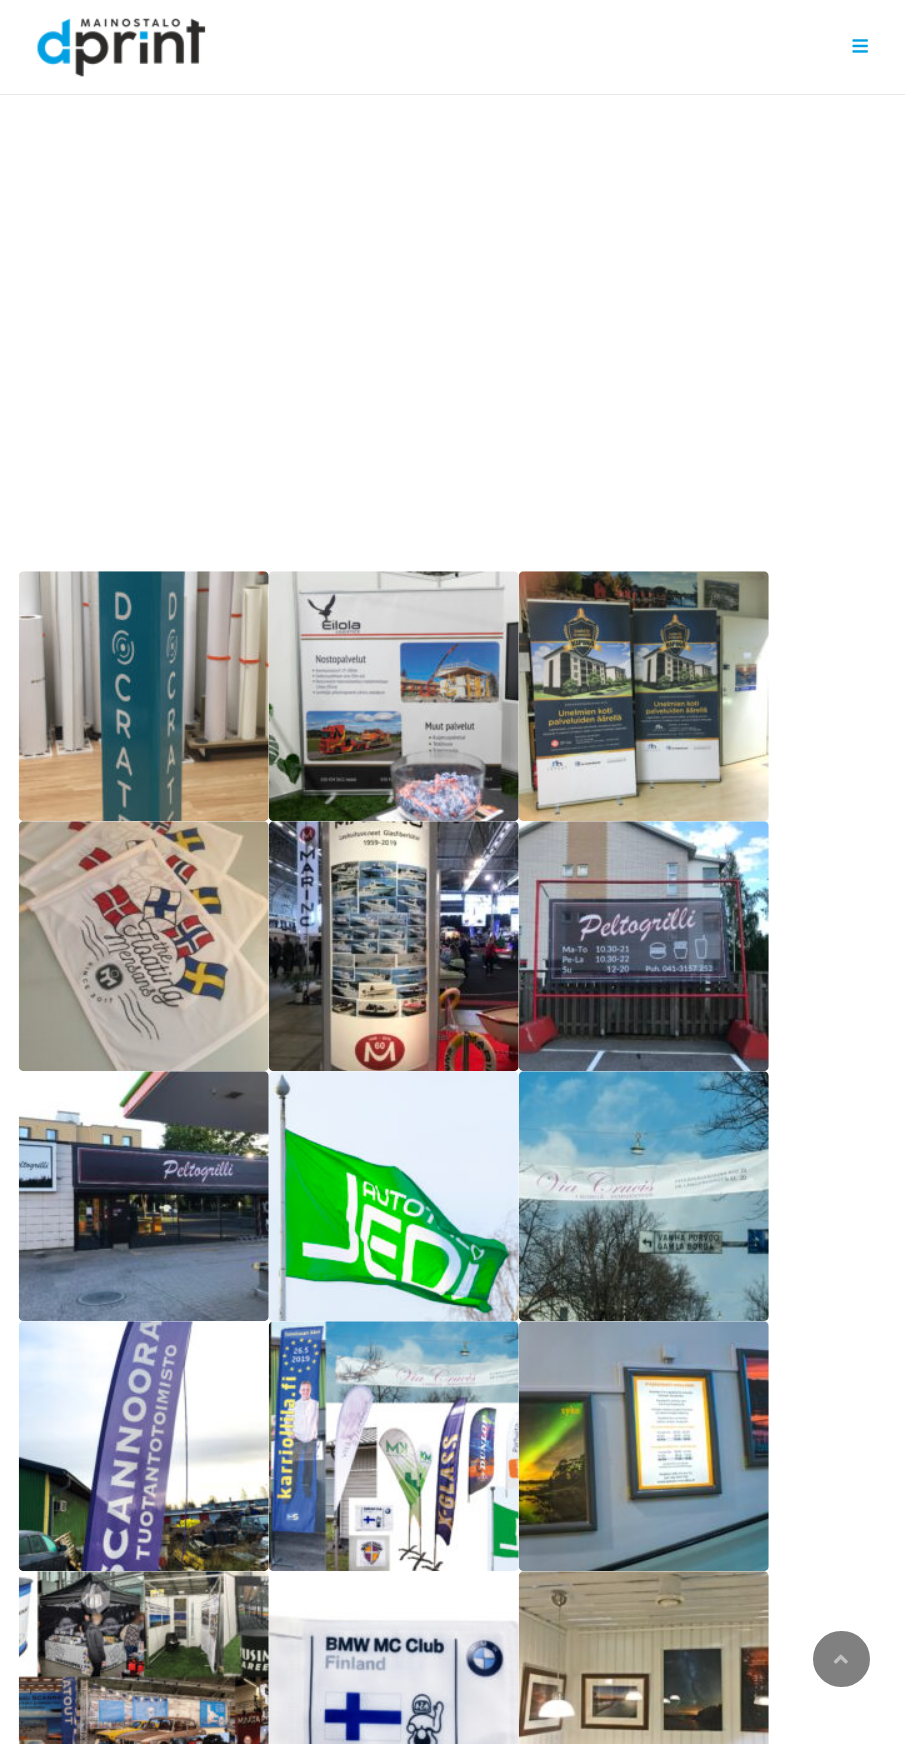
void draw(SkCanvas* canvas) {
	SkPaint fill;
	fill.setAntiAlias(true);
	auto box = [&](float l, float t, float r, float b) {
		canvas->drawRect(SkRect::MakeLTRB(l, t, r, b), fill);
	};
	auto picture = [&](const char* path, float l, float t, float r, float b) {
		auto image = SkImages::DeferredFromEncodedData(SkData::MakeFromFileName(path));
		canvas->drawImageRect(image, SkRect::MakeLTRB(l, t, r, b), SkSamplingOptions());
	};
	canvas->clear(0xFFFFFFFF);
	fill.setColor(0xFFE6E6E6);
	box(0, 94, 905, 95);
	picture("image0.png", 37, 18, 206, 77);
	picture("image1.png", 852, 39, 868, 53);
	picture("image2.png", 18, 571, 269, 822);
	picture("image3.png", 268, 571, 519, 822);
	picture("image4.png", 518, 571, 769, 822);
	picture("image5.png", 18, 821, 269, 1072);
	picture("image6.png", 268, 821, 519, 1072);
	picture("image7.png", 518, 821, 769, 1072);
	picture("image8.png", 18, 1071, 269, 1322);
	picture("image9.png", 268, 1071, 519, 1322);
	picture("image10.png", 518, 1071, 769, 1322);
	picture("image11.png", 18, 1321, 269, 1572);
	picture("image12.png", 268, 1321, 519, 1572);
	picture("image13.png", 518, 1321, 769, 1572);
	picture("image14.png", 18, 1571, 269, 1744);
	picture("image15.png", 268, 1571, 519, 1744);
	picture("image16.png", 518, 1571, 769, 1744);
	fill.setColor(0xFF808080);
	canvas->drawRoundRect(SkRect::MakeLTRB(811.5f, 1629.5f, 871.5f, 1688.5f), 29.5f, 29.5f, fill);
	fill.setStyle(SkPaint::kStroke_Style);
	fill.setStrokeWidth(3);
	fill.setColor(0xFFFFFFFF);
	canvas->drawRoundRect(SkRect::MakeLTRB(811.5f, 1629.5f, 871.5f, 1688.5f), 29.5f, 29.5f, fill);
	picture("image17.png", 833, 1654, 848, 1664);
}
